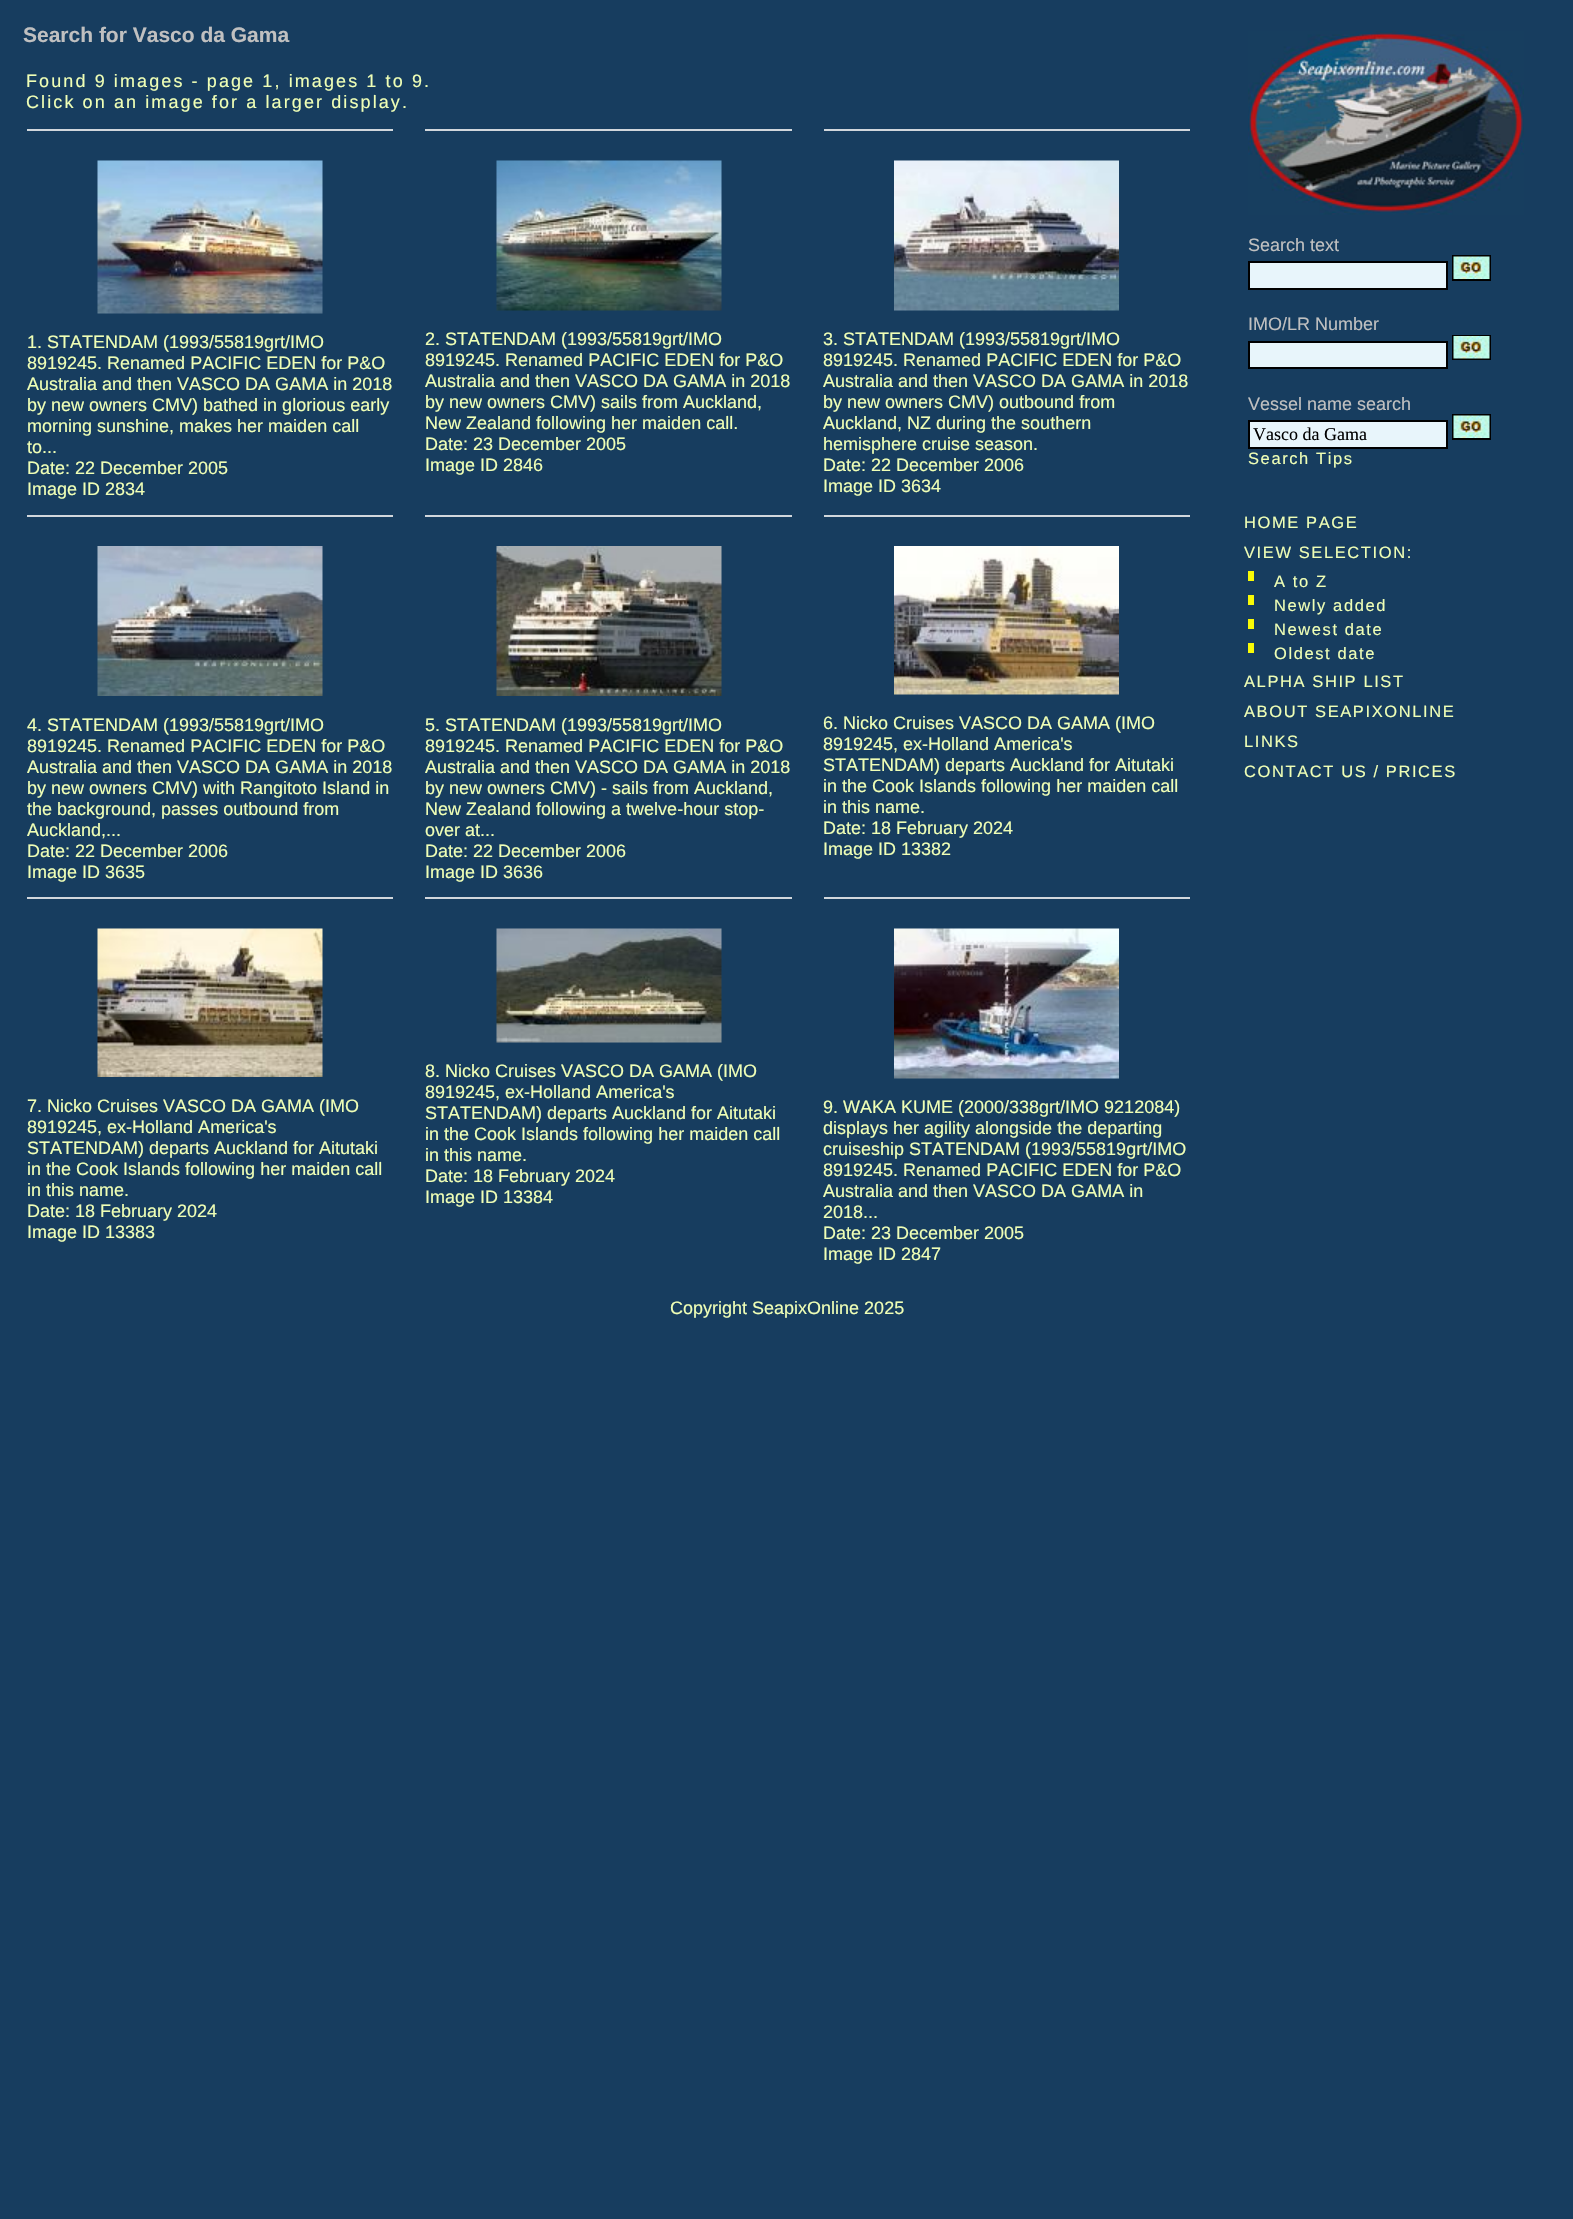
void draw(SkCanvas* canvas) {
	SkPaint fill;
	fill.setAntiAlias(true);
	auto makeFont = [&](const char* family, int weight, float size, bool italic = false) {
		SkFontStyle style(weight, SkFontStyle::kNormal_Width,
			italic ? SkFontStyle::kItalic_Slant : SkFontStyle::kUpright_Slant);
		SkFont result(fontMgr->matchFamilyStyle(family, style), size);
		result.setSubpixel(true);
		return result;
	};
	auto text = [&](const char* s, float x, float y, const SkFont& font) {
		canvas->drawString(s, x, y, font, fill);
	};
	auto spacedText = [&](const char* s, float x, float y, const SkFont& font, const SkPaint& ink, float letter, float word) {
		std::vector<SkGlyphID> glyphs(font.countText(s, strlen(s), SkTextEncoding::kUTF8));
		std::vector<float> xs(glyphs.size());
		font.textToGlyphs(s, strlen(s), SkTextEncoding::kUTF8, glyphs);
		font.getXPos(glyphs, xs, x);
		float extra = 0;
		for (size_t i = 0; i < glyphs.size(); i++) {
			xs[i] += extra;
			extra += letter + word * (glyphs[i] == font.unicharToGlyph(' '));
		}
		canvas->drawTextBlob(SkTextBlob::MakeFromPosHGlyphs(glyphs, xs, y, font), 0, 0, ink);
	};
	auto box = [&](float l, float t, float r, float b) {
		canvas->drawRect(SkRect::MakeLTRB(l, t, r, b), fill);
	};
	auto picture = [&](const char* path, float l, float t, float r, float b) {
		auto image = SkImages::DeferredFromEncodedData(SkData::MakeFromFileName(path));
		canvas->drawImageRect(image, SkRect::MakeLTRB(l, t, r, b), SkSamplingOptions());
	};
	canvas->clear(0xFF173D5F);
	fill.setColor(0xFFD1D7DC);
	box(27, 129, 393, 131);
	picture("image0.png", 97, 160, 323, 314);
	box(425, 129, 792, 131);
	picture("image1.png", 496, 160, 722, 311);
	box(824, 129, 1190, 131);
	picture("image2.png", 894, 160, 1119, 311);
	box(27, 515, 393, 517);
	picture("image3.png", 97, 546, 323, 696);
	box(425, 515, 792, 517);
	picture("image4.png", 496, 546, 722, 696);
	box(824, 515, 1190, 517);
	picture("image5.png", 894, 546, 1119, 695);
	box(27, 897, 393, 899);
	picture("image6.png", 97, 928, 323, 1077);
	box(425, 897, 792, 899);
	picture("image7.png", 496, 928, 722, 1043);
	box(824, 897, 1190, 899);
	picture("image8.png", 894, 928, 1119, 1079);
	picture("image9.png", 1248, 31, 1524, 215);
	fill.setColor(0xFFE8F5FB);
	canvas->drawRect(SkRect::MakeLTRB(1249, 262, 1447, 289), fill);
	fill.setStyle(SkPaint::kStroke_Style);
	fill.setStrokeWidth(2);
	fill.setColor(0xFF000000);
	canvas->drawRect(SkRect::MakeLTRB(1249, 262, 1447, 289), fill);
	canvas->drawRect(SkRect::MakeLTRB(1453, 256, 1490, 280), fill);
	picture("image10.png", 1453, 256, 1490, 279);
	fill.setStyle(SkPaint::kFill_Style);
	fill.setColor(0xFFE8F5FB);
	canvas->drawRect(SkRect::MakeLTRB(1249, 342, 1447, 368), fill);
	fill.setStyle(SkPaint::kStroke_Style);
	fill.setColor(0xFF000000);
	canvas->drawRect(SkRect::MakeLTRB(1249, 342, 1447, 368), fill);
	canvas->drawRect(SkRect::MakeLTRB(1453, 336, 1490, 359), fill);
	picture("image11.png", 1453, 336, 1490, 359);
	fill.setStyle(SkPaint::kFill_Style);
	fill.setColor(0xFFE8F5FB);
	canvas->drawRect(SkRect::MakeLTRB(1249, 421, 1447, 448), fill);
	fill.setStyle(SkPaint::kStroke_Style);
	fill.setColor(0xFF000000);
	canvas->drawRect(SkRect::MakeLTRB(1249, 421, 1447, 448), fill);
	canvas->drawRect(SkRect::MakeLTRB(1453, 415, 1490, 439), fill);
	picture("image10.png", 1453, 415, 1490, 438);
	fill.setStyle(SkPaint::kFill_Style);
	fill.setColor(0xFFF9FA06);
	box(1248, 571, 1254, 581);
	box(1248, 595, 1254, 605);
	box(1248, 619, 1254, 629);
	box(1248, 643, 1254, 653);
	auto font1 = makeFont("Liberation Sans", 700, 21);
	fill.setColor(0xFFC0C0C0);
	text("Search for Vasco da Gama", 23, 42, font1);
	auto font2 = makeFont("Liberation Sans", 400, 18);
	fill.setColor(0xFFEFFFB6);
	spacedText("Found 9 images - page 1, images 1 to 9.", 26, 87, font2, fill, 2.1f, 0);
	spacedText("Click on an image for a larger display.", 26, 108, font2, fill, 2.1f, 0);
	text("1. STATENDAM (1993/55819grt/IMO", 27, 348, font2);
	text("8919245. Renamed PACIFIC EDEN for P&O", 27, 369, font2);
	text("Australia and then VASCO DA GAMA in 2018", 27, 390, font2);
	text("by new owners CMV) bathed in glorious early", 27, 411, font2);
	text("morning sunshine, makes her maiden call", 27, 432, font2);
	text("to...", 27, 453, font2);
	text("Date: 22 December 2005", 27, 474, font2);
	text("Image ID 2834", 27, 495, font2);
	text("2. STATENDAM (1993/55819grt/IMO", 425, 345, font2);
	text("8919245. Renamed PACIFIC EDEN for P&O", 425, 366, font2);
	text("Australia and then VASCO DA GAMA in 2018", 425, 387, font2);
	text("by new owners CMV) sails from Auckland,", 425, 408, font2);
	text("New Zealand following her maiden call.", 425, 429, font2);
	text("Date: 23 December 2005", 425, 450, font2);
	text("Image ID 2846", 425, 471, font2);
	text("3. STATENDAM (1993/55819grt/IMO", 823, 345, font2);
	text("8919245. Renamed PACIFIC EDEN for P&O", 823, 366, font2);
	text("Australia and then VASCO DA GAMA in 2018", 823, 387, font2);
	text("by new owners CMV) outbound from", 823, 408, font2);
	text("Auckland, NZ during the southern", 823, 429, font2);
	text("hemisphere cruise season.", 823, 450, font2);
	text("Date: 22 December 2006", 823, 471, font2);
	text("Image ID 3634", 823, 492, font2);
	text("4. STATENDAM (1993/55819grt/IMO", 27, 731, font2);
	text("8919245. Renamed PACIFIC EDEN for P&O", 27, 752, font2);
	text("Australia and then VASCO DA GAMA in 2018", 27, 773, font2);
	text("by new owners CMV) with Rangitoto Island in", 27, 794, font2);
	text("the background, passes outbound from", 27, 815, font2);
	text("Auckland,...", 27, 836, font2);
	text("Date: 22 December 2006", 27, 857, font2);
	text("Image ID 3635", 27, 878, font2);
	text("5. STATENDAM (1993/55819grt/IMO", 425, 731, font2);
	text("8919245. Renamed PACIFIC EDEN for P&O", 425, 752, font2);
	text("Australia and then VASCO DA GAMA in 2018", 425, 773, font2);
	text("by new owners CMV) - sails from Auckland,", 425, 794, font2);
	text("New Zealand following a twelve-hour stop-", 425, 815, font2);
	text("over at...", 425, 836, font2);
	text("Date: 22 December 2006", 425, 857, font2);
	text("Image ID 3636", 425, 878, font2);
	text("6. Nicko Cruises VASCO DA GAMA (IMO", 823, 729, font2);
	text("8919245, ex-Holland America's", 823, 750, font2);
	text("STATENDAM) departs Auckland for Aitutaki", 823, 771, font2);
	text("in the Cook Islands following her maiden call", 823, 792, font2);
	text("in this name.", 823, 813, font2);
	text("Date: 18 February 2024", 823, 834, font2);
	text("Image ID 13382", 823, 855, font2);
	text("7. Nicko Cruises VASCO DA GAMA (IMO", 27, 1112, font2);
	text("8919245, ex-Holland America's", 27, 1133, font2);
	text("STATENDAM) departs Auckland for Aitutaki", 27, 1154, font2);
	text("in the Cook Islands following her maiden call", 27, 1175, font2);
	text("in this name.", 27, 1196, font2);
	text("Date: 18 February 2024", 27, 1217, font2);
	text("Image ID 13383", 27, 1238, font2);
	text("8. Nicko Cruises VASCO DA GAMA (IMO", 425, 1077, font2);
	text("8919245, ex-Holland America's", 425, 1098, font2);
	text("STATENDAM) departs Auckland for Aitutaki", 425, 1119, font2);
	text("in the Cook Islands following her maiden call", 425, 1140, font2);
	text("in this name.", 425, 1161, font2);
	text("Date: 18 February 2024", 425, 1182, font2);
	text("Image ID 13384", 425, 1203, font2);
	text("9. WAKA KUME (2000/338grt/IMO 9212084)", 823, 1113, font2);
	text("displays her agility alongside the departing", 823, 1134, font2);
	text("cruiseship STATENDAM (1993/55819grt/IMO", 823, 1155, font2);
	text("8919245. Renamed PACIFIC EDEN for P&O", 823, 1176, font2);
	text("Australia and then VASCO DA GAMA in", 823, 1197, font2);
	text("2018...", 823, 1218, font2);
	text("Date: 23 December 2005", 823, 1239, font2);
	text("Image ID 2847", 823, 1260, font2);
	fill.setColor(0xFFC0C0C0);
	text("Search text", 1248, 251, font2);
	text("IMO/LR Number", 1248, 330, font2);
	text("Vessel name search", 1248, 410, font2);
	auto font3 = makeFont("Liberation Serif", 400, 18);
	fill.setColor(0xFF000000);
	text("Vasco da Gama", 1253, 440, font3);
	auto font4 = makeFont("Liberation Sans", 400, 16.5f);
	fill.setColor(0xFFEFFFB6);
	spacedText("Search Tips", 1248, 464, font4, fill, 1.6f, 0);
	spacedText("HOME PAGE", 1244, 528, font4, fill, 1.6f, 0);
	spacedText("VIEW SELECTION:", 1244, 558, font4, fill, 1.6f, 0);
	spacedText("A to Z", 1274, 587, font4, fill, 1.6f, 0);
	spacedText("Newly added", 1274, 611, font4, fill, 1.6f, 0);
	spacedText("Newest date", 1274, 635, font4, fill, 1.6f, 0);
	spacedText("Oldest date", 1274, 659, font4, fill, 1.6f, 0);
	spacedText("ALPHA SHIP LIST", 1244, 687, font4, fill, 1.6f, 0);
	spacedText("ABOUT SEAPIXONLINE", 1244, 717, font4, fill, 1.6f, 0);
	spacedText("LINKS", 1244, 747, font4, fill, 1.6f, 0);
	spacedText("CONTACT US / PRICES", 1244, 777, font4, fill, 1.6f, 0);
	text("Copyright SeapixOnline 2025", 670, 1314, font2);
}
